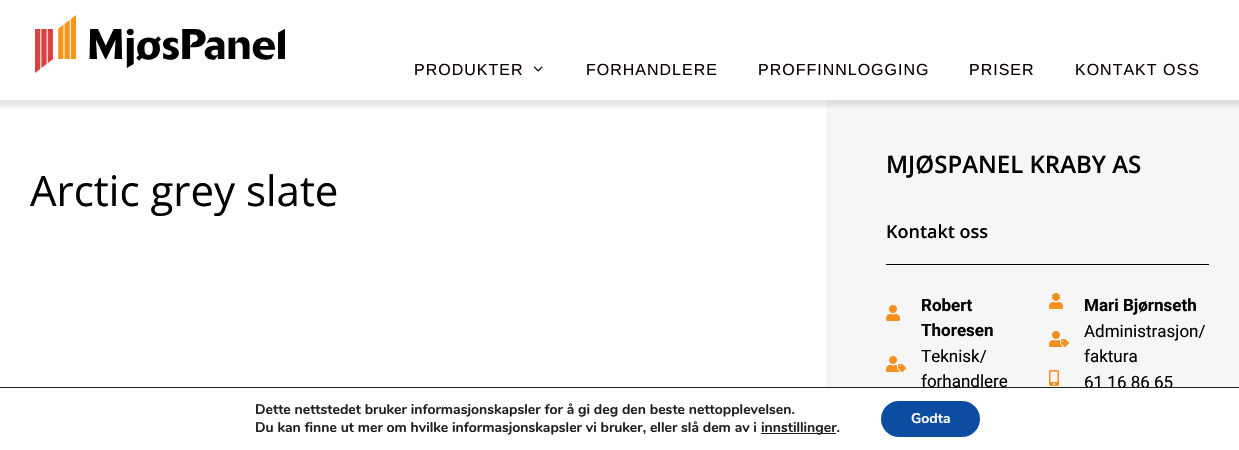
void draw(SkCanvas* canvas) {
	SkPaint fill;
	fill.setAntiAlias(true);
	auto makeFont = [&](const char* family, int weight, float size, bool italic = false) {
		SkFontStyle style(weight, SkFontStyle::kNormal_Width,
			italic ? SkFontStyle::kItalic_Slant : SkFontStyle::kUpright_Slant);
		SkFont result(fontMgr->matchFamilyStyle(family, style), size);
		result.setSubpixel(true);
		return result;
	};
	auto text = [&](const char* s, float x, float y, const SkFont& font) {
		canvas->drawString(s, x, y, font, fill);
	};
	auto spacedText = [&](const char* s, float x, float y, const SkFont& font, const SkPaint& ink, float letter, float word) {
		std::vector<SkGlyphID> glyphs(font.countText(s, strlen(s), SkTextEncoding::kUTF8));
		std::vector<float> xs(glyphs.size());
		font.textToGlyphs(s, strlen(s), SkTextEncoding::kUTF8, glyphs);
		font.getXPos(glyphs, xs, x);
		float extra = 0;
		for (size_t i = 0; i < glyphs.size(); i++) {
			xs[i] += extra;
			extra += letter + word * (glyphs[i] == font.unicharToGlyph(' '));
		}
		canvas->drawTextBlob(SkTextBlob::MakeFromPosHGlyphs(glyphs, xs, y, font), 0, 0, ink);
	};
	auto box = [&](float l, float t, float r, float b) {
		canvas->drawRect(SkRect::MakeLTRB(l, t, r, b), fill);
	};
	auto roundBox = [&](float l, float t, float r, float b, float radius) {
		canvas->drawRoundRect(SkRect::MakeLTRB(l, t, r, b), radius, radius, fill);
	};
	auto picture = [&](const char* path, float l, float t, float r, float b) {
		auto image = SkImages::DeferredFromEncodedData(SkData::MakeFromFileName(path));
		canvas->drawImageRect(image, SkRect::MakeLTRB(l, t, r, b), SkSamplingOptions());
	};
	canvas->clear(0xFFFFFFFF);
	fill.setColor(0xFFF6F6F6);
	box(826, 100, 1239, 387);
	canvas->save();
	canvas->clipRect(SkRect::MakeLTRB(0, 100, 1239, 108));
	fill.setColor(0x1A000000);
	fill.setMaskFilter(SkMaskFilter::MakeBlur(kNormal_SkBlurStyle, 2.5f));
	canvas->drawRect(SkRect::MakeLTRB(-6, -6, 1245, 106), fill);
	fill.setMaskFilter(nullptr);
	canvas->restore();
	picture("image0.png", 35, 15, 285, 73);
	picture("image1.png", 533, 66, 543, 72);
	fill.setColor(0xFF000000);
	box(886, 264, 1209, 265);
	picture("image2.png", 886, 305, 900, 321);
	picture("image3.png", 886, 356, 906, 372);
	picture("image2.png", 1049, 293, 1063, 309);
	picture("image3.png", 1049, 331, 1069, 347);
	picture("image4.png", 1049, 370, 1059, 386);
	fill.setColor(0xFF202020);
	box(761, 433, 836, 434);
	fill.setColor(0xFF0C4DA2);
	roundBox(881, 401, 980, 437, 18);
	auto font1 = makeFont("Liberation Sans", 400, 16);
	fill.setColor(0xFF0A0000);
	spacedText("PRODUKTER", 414, 75, font1, fill, 1, 0);
	spacedText("FORHANDLERE", 586, 75, font1, fill, 1, 0);
	spacedText("PROFFINNLOGGING", 758, 75, font1, fill, 1, 0);
	spacedText("PRISER", 969, 75, font1, fill, 1, 0);
	spacedText("KONTAKT OSS", 1075, 75, font1, fill, 1, 0);
	auto font2 = makeFont("Open Sans", 400, 42);
	fill.setColor(0xFF000000);
	text("Arctic grey slate", 30, 206, font2);
	auto font3 = makeFont("Open Sans", 600, 24);
	text("MJØSPANEL KRABY AS", 886, 173, font3);
	auto font4 = makeFont("Open Sans", 600, 18);
	text("Kontakt oss", 886, 238, font4);
	auto font5 = makeFont("Roboto", 700, 17);
	text("Robert", 921, 311, font5);
	text("Thoresen", 921, 336, font5);
	auto font6 = makeFont("Roboto", 400, 17);
	text("Teknisk/", 921, 362, font6);
	text("forhandlere", 921, 387, font6);
	text("Mari Bjørnseth", 1084, 311, font5);
	text("Administrasjon/", 1084, 337, font6);
	text("faktura", 1084, 362, font6);
	text("61 16 86 65", 1084, 388, font6);
	fill.setColor(0xFFFFFFFF);
	box(1088, 388, 1171, 389);
	fill.setColor(0xFF202020);
	box(0, 387, 1239, 388);
	auto font7 = makeFont("Nunito", 700, 14);
	text("Dette nettstedet bruker informasjonskapsler for å gi deg den beste nettopplevelsen.", 255, 414, font7);
	text("Du kan finne ut mer om hvilke informasjonskapsler vi bruker, eller slå dem av i", 255, 432, font7);
	text("innstillinger.", 761, 432, font7);
	fill.setColor(0xFFFFFFFF);
	text("Godta", 911, 423, font7);
}
